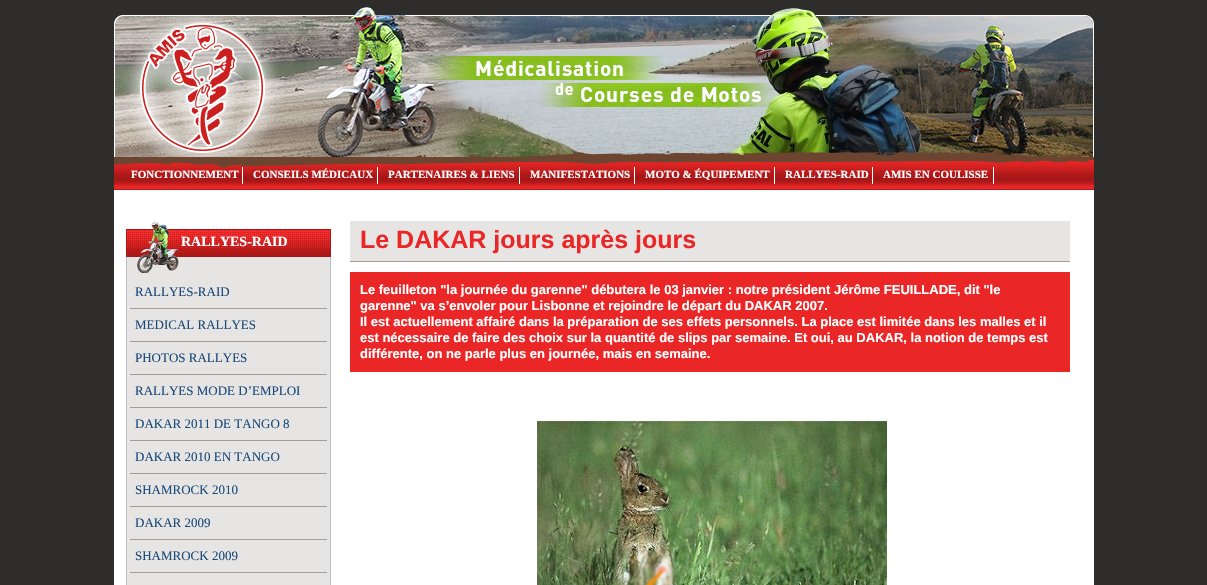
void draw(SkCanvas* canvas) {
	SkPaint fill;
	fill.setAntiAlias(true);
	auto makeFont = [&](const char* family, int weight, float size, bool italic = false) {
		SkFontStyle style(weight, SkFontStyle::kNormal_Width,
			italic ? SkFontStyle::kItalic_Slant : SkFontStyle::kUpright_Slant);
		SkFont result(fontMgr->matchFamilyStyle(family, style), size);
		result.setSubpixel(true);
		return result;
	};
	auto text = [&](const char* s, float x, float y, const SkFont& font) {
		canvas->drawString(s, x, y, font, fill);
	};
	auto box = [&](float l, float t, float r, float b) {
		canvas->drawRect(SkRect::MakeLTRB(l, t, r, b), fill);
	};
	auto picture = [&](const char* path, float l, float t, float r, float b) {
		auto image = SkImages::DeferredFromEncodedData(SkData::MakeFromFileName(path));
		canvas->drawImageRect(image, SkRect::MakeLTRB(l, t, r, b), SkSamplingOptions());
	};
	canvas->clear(0xFF2E2D2B);
	fill.setColor(0xFFFFFFFF);
	box(114, 190, 1094, 585);
	picture("image0.png", 112, 0, 1096, 157);
	picture("image1.png", 114, 157, 1094, 190);
	box(242, 167, 243, 184);
	box(377, 167, 378, 184);
	box(519, 167, 520, 184);
	box(634, 167, 635, 184);
	box(774, 167, 775, 184);
	box(872, 167, 873, 184);
	box(993, 167, 994, 184);
	picture("image2.png", 126, 221, 331, 273);
	fill.setColor(0xFFE6E5E3);
	box(127, 273, 330, 585);
	fill.setColor(0xFFB3C0CB);
	box(330, 273, 331, 585);
	box(126, 273, 127, 585);
	fill.setColor(0xFF9F9E9C);
	box(130, 308, 327, 309);
	box(130, 341, 327, 342);
	box(130, 374, 327, 375);
	box(130, 407, 327, 408);
	box(130, 440, 327, 441);
	box(130, 473, 327, 474);
	box(130, 506, 327, 507);
	box(130, 539, 327, 540);
	box(130, 572, 327, 573);
	fill.setColor(0xFFE6E5E3);
	box(350, 221, 1070, 261);
	fill.setColor(0xFF9F9E9C);
	box(350, 261, 1070, 262);
	fill.setColor(0xFFEA2626);
	box(350, 272, 1070, 372);
	picture("image3.png", 537, 421, 887, 585);
	auto font1 = makeFont("Liberation Serif", 700, 11);
	fill.setColor(0xFFFFFFFF);
	text("FONCTIONNEMENT", 131, 178, font1);
	text("CONSEILS MÉDICAUX", 253, 178, font1);
	text("PARTENAIRES & LIENS", 388, 178, font1);
	text("MANIFESTATIONS", 530, 178, font1);
	text("MOTO & ÉQUIPEMENT", 645, 178, font1);
	text("RALLYES-RAID", 785, 178, font1);
	text("AMIS EN COULISSE", 883, 178, font1);
	auto font2 = makeFont("Liberation Serif", 700, 14);
	text("RALLYES-RAID", 181, 246, font2);
	auto font3 = makeFont("Liberation Serif", 400, 13);
	fill.setColor(0xFF1B497A);
	text("RALLYES-RAID", 135, 296, font3);
	text("MEDICAL RALLYES", 135, 329, font3);
	text("PHOTOS RALLYES", 135, 362, font3);
	text("RALLYES MODE D’EMPLOI", 135, 395, font3);
	text("DAKAR 2011 DE TANGO 8", 135, 428, font3);
	text("DAKAR 2010 EN TANGO", 135, 461, font3);
	text("SHAMROCK 2010", 135, 494, font3);
	text("DAKAR 2009", 135, 527, font3);
	text("SHAMROCK 2009", 135, 560, font3);
	auto font4 = makeFont("Liberation Sans", 700, 25);
	fill.setColor(0xFFEA2626);
	text("Le DAKAR jours après jours", 360, 248, font4);
	auto font5 = makeFont("Liberation Sans", 700, 13);
	fill.setColor(0xFFFFFFFF);
	text("Le feuilleton \"la journée du garenne\" débutera le 03 janvier : notre président Jérôme FEUILLADE, dit \"le", 360, 294, font5);
	text("garenne\" va s’envoler pour Lisbonne et rejoindre le départ du DAKAR 2007.", 360, 310, font5);
	text("Il est actuellement affairé dans la préparation de ses effets personnels. La place est limitée dans les malles et il", 360, 326, font5);
	text("est nécessaire de faire des choix sur la quantité de slips par semaine. Et oui, au DAKAR, la notion de temps est", 360, 342, font5);
	text("différente, on ne parle plus en journée, mais en semaine.", 360, 358, font5);
}
